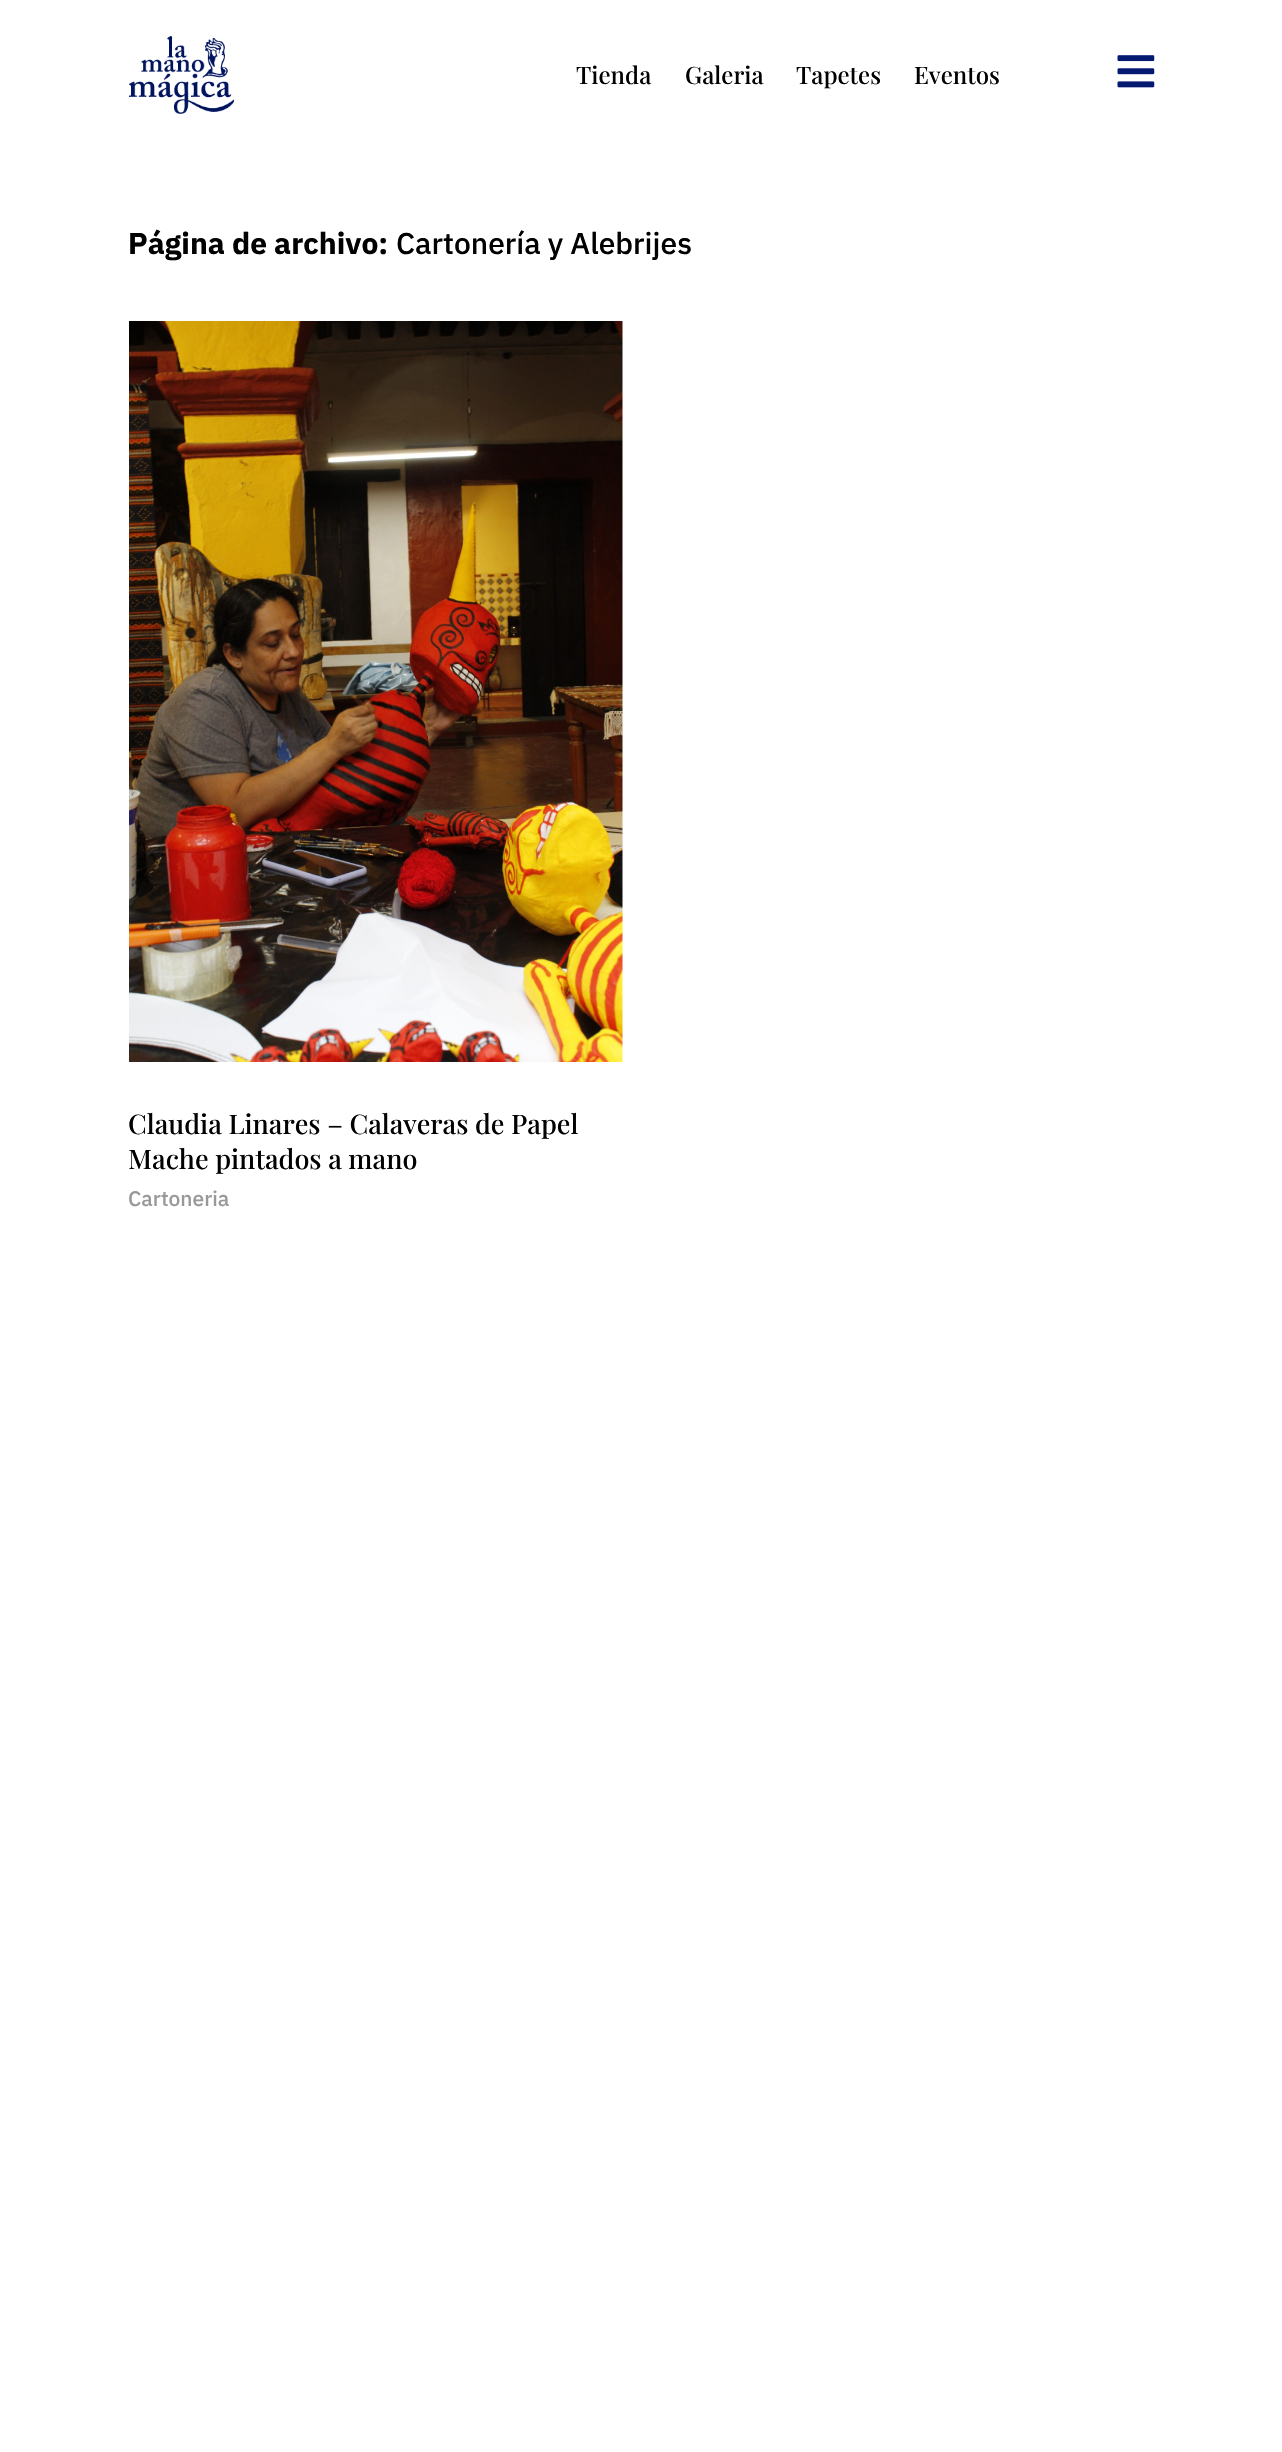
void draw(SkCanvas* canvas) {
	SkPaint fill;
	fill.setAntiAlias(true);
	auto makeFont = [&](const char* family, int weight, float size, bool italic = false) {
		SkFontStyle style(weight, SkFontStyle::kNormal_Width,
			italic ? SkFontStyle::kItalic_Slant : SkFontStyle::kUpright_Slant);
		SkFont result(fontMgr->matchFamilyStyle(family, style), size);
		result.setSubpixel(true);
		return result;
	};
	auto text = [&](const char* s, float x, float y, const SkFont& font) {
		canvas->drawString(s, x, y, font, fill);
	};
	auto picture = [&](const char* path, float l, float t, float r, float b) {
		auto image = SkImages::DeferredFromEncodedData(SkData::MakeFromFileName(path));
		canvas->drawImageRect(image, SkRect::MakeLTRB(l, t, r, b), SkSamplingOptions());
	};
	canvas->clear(0xFFFFFFFF);
	picture("image0.png", 129, 36, 234, 114);
	picture("image1.png", 1117, 55, 1155, 88);
	picture("image2.png", 129, 321, 623, 1062);
	auto font1 = makeFont("Playfair Display", 500, 24);
	fill.setColor(0xFF000000);
	text("Tienda", 576, 84, font1);
	text("Galeria", 685, 84, font1);
	text("Tapetes", 796, 84, font1);
	text("Eventos", 914, 84, font1);
	auto font2 = makeFont("IBM Plex Sans", 700, 30);
	text("Página de archivo:", 128, 254, font2);
	auto font3 = makeFont("IBM Plex Sans", 500, 30);
	text("Cartonería y Alebrijes", 396, 254, font3);
	auto font4 = makeFont("Playfair Display", 500, 27);
	text("Claudia Linares – Calaveras de Papel", 128, 1134, font4);
	text("Mache pintados a mano", 128, 1169, font4);
	auto font5 = makeFont("IBM Plex Sans", 500, 21);
	fill.setColor(0xFF9B9898);
	text("Cartoneria", 128, 1206, font5);
}
